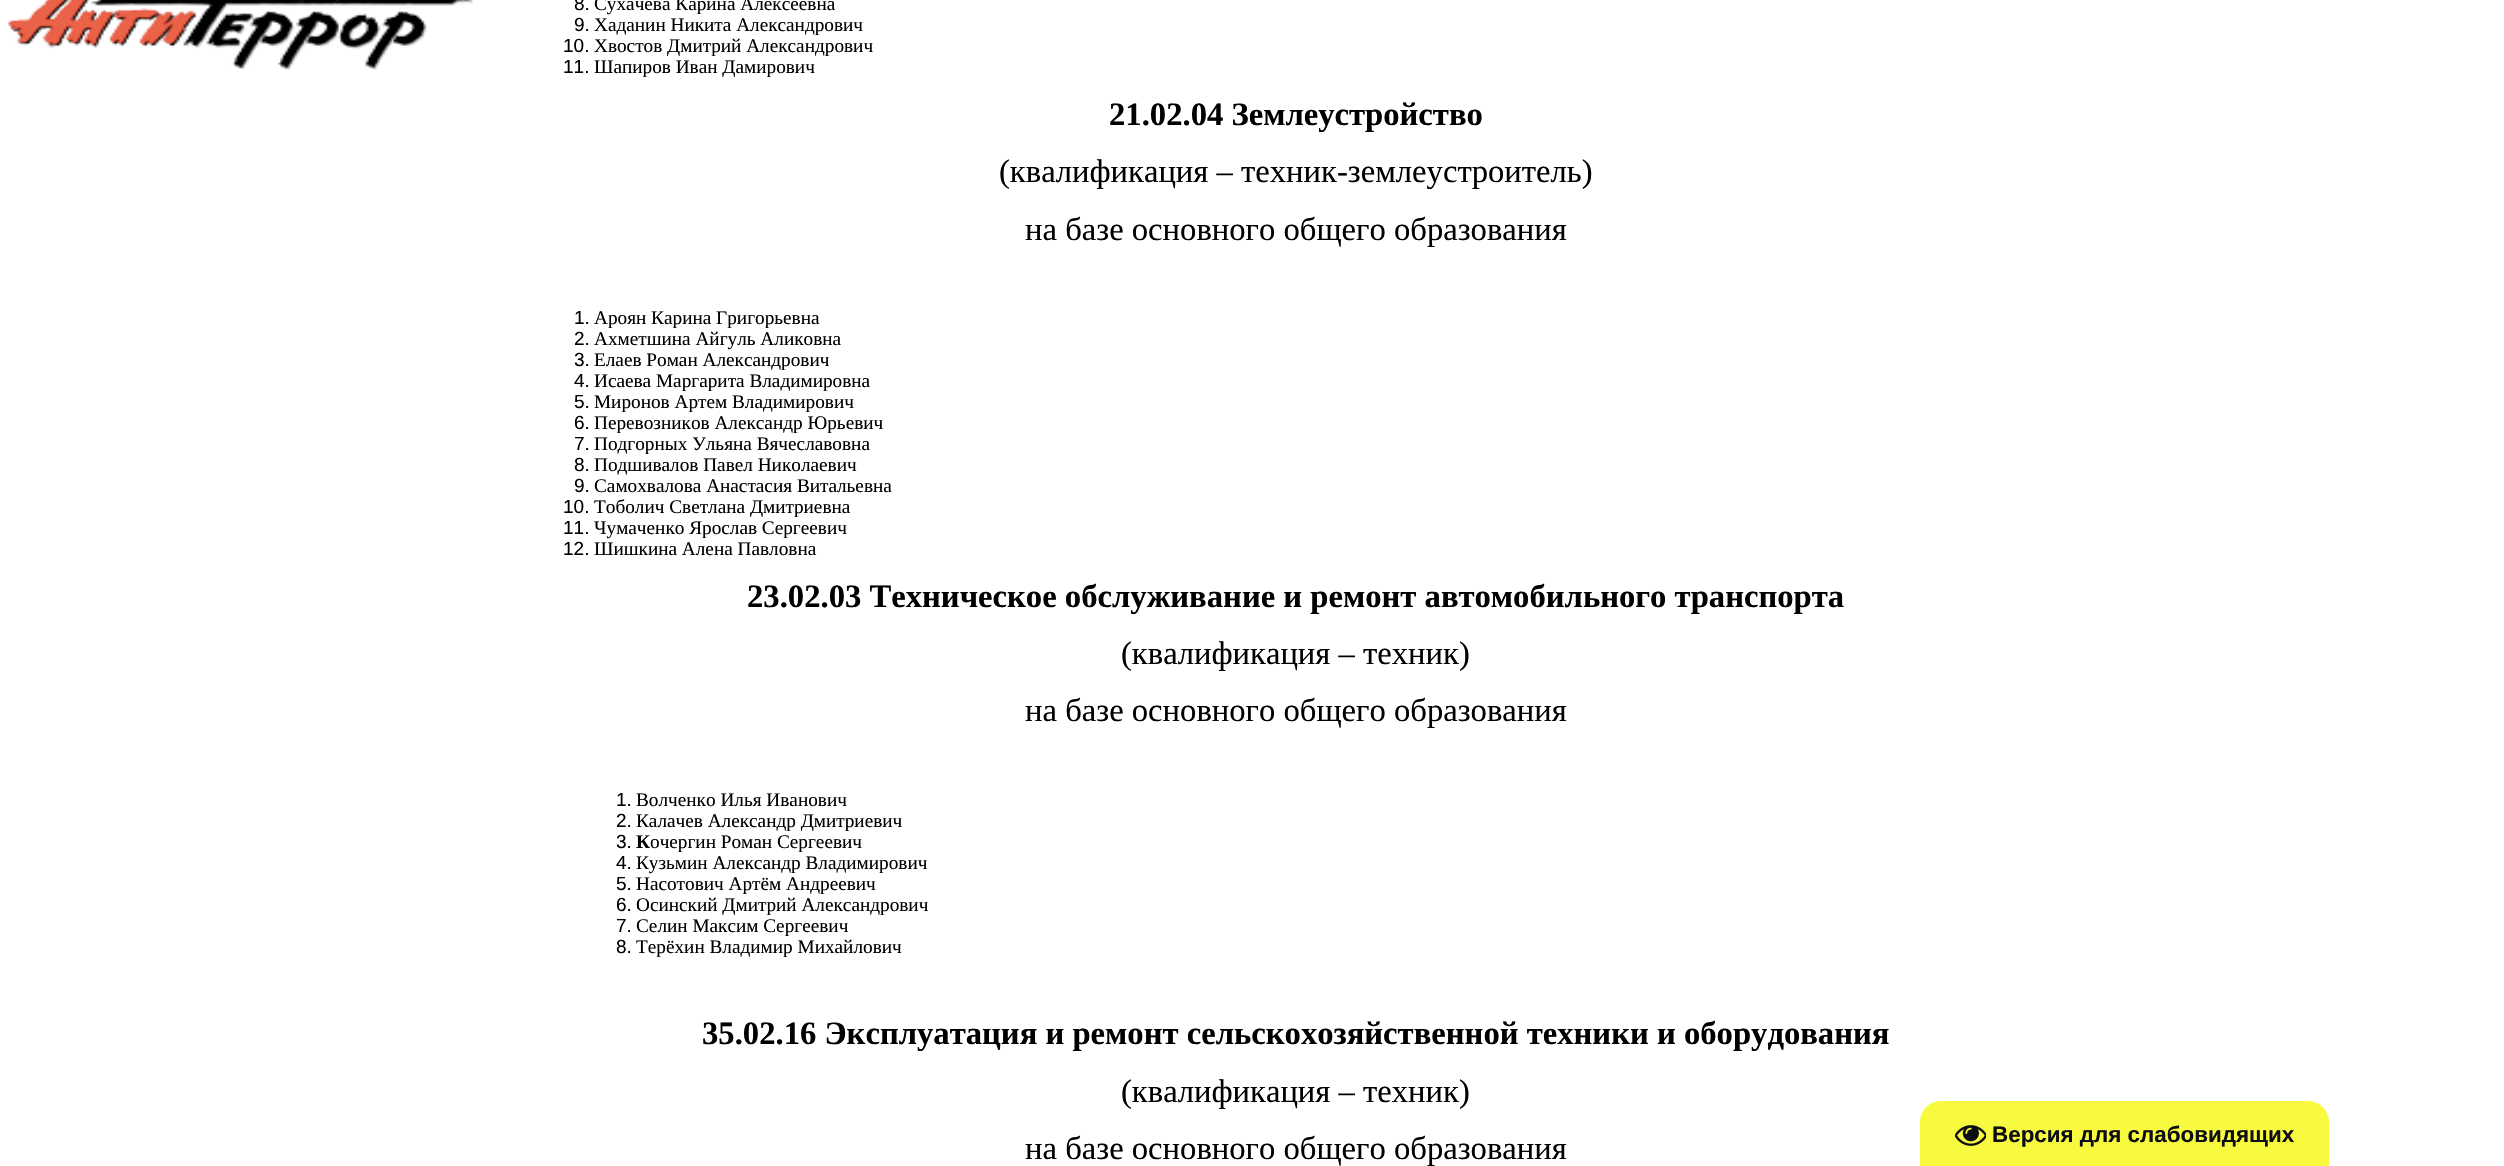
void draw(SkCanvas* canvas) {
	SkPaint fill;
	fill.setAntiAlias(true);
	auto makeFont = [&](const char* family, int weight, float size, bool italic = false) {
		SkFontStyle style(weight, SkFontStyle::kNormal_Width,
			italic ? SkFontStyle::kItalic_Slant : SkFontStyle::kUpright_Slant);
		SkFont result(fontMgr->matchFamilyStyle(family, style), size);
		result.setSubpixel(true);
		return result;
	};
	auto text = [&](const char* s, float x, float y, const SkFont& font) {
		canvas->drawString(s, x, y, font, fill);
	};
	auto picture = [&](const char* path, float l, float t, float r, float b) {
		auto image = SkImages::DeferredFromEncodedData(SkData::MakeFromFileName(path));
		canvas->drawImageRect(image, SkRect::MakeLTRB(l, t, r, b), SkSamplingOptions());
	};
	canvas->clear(0xFFFFFFFF);
	picture("image0.png", 8, 0, 474, 71);
	fill.setColor(0xFFF7FA3E);
	canvas->drawPath(SkPathBuilder().moveTo(1941, 1101).lineTo(2308, 1101).cubicTo(2319.5f, 1101, 2329, 1110.5f, 2329, 1122).lineTo(2329, 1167).lineTo(1920, 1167).lineTo(1920, 1122).cubicTo(1920, 1110.5f, 1929.5f, 1101, 1941, 1101).close().detach(), fill);
	picture("image1.png", 1955, 1125, 1986, 1146);
	auto font1 = makeFont("Liberation Sans", 400, 19);
	fill.setColor(0xFF000000);
	text("8.", 574, 10, font1);
	auto font2 = makeFont("Liberation Serif", 400, 19.25f);
	text("Сухачева Карина Алексеевна", 594, 10, font2);
	text("9.", 574, 31, font1);
	text("Хаданин Никита Александрович", 594, 31, font2);
	text("10.", 563, 52, font1);
	text("Хвостов Дмитрий Александрович", 594, 52, font2);
	text("11.", 563, 73, font1);
	text("Шапиров Иван Дамирович", 594, 73, font2);
	auto font3 = makeFont("Liberation Serif", 700, 32.65f);
	text("21.02.04 Землеустройство", 1109, 125, font3);
	auto font4 = makeFont("Liberation Serif", 400, 32.65f);
	text("(квалификация – техник-землеустроитель)", 999, 182, font4);
	text("на базе основного общего образования", 1025, 240, font4);
	text("1.", 574, 324, font1);
	text("Ароян Карина Григорьевна", 594, 324, font2);
	text("2.", 574, 345, font1);
	text("Ахметшина Айгуль Аликовна", 594, 345, font2);
	text("3.", 574, 366, font1);
	text("Елаев Роман Александрович", 594, 366, font2);
	text("4.", 574, 387, font1);
	text("Исаева Маргарита Владимировна", 594, 387, font2);
	text("5.", 574, 408, font1);
	text("Миронов Артем Владимирович", 594, 408, font2);
	text("6.", 574, 429, font1);
	text("Перевозников Александр Юрьевич", 594, 429, font2);
	text("7.", 574, 450, font1);
	text("Подгорных Ульяна Вячеславовна", 594, 450, font2);
	text("8.", 574, 471, font1);
	text("Подшивалов Павел Николаевич", 594, 471, font2);
	text("9.", 574, 492, font1);
	text("Самохвалова Анастасия Витальевна", 594, 492, font2);
	text("10.", 563, 513, font1);
	text("Тоболич Светлана Дмитриевна", 594, 513, font2);
	text("11.", 563, 534, font1);
	text("Чумаченко Ярослав Сергеевич", 594, 534, font2);
	text("12.", 563, 555, font1);
	text("Шишкина Алена Павловна", 594, 555, font2);
	text("23.02.03 Техническое обслуживание и ремонт автомобильного транспорта", 747, 607, font3);
	text("(квалификация – техник)", 1121, 664, font4);
	text("на базе основного общего образования", 1025, 721, font4);
	text("1.", 616, 806, font1);
	text("Волченко Илья Иванович", 636, 806, font2);
	text("2.", 616, 827, font1);
	text("Калачев Александр Дмитриевич", 636, 827, font2);
	text("3.", 616, 848, font1);
	auto font5 = makeFont("Liberation Serif", 700, 19.25f);
	text("К", 636, 848, font5);
	text("очергин Роман Сергеевич", 650, 848, font2);
	text("4.", 616, 869, font1);
	text("Кузьмин Александр Владимирович", 636, 869, font2);
	text("5.", 616, 890, font1);
	text("Насотович Артём Андреевич", 636, 890, font2);
	text("6.", 616, 911, font1);
	text("Осинский Дмитрий Александрович", 636, 911, font2);
	text("7.", 616, 932, font1);
	text("Селин Максим Сергеевич", 636, 932, font2);
	text("8.", 616, 953, font1);
	text("Терёхин Владимир Михайлович", 636, 953, font2);
	text("35.02.16 Эксплуатация и ремонт сельскохозяйственной техники и оборудования", 702, 1044, font3);
	text("(квалификация – техник)", 1121, 1102, font4);
	text("на базе основного общего образования", 1025, 1159, font4);
	auto font6 = makeFont("Liberation Sans", 700, 22.4f);
	fill.setColor(0xFF0D0D14);
	text("Версия для слабовидящих", 1992, 1142, font6);
}
